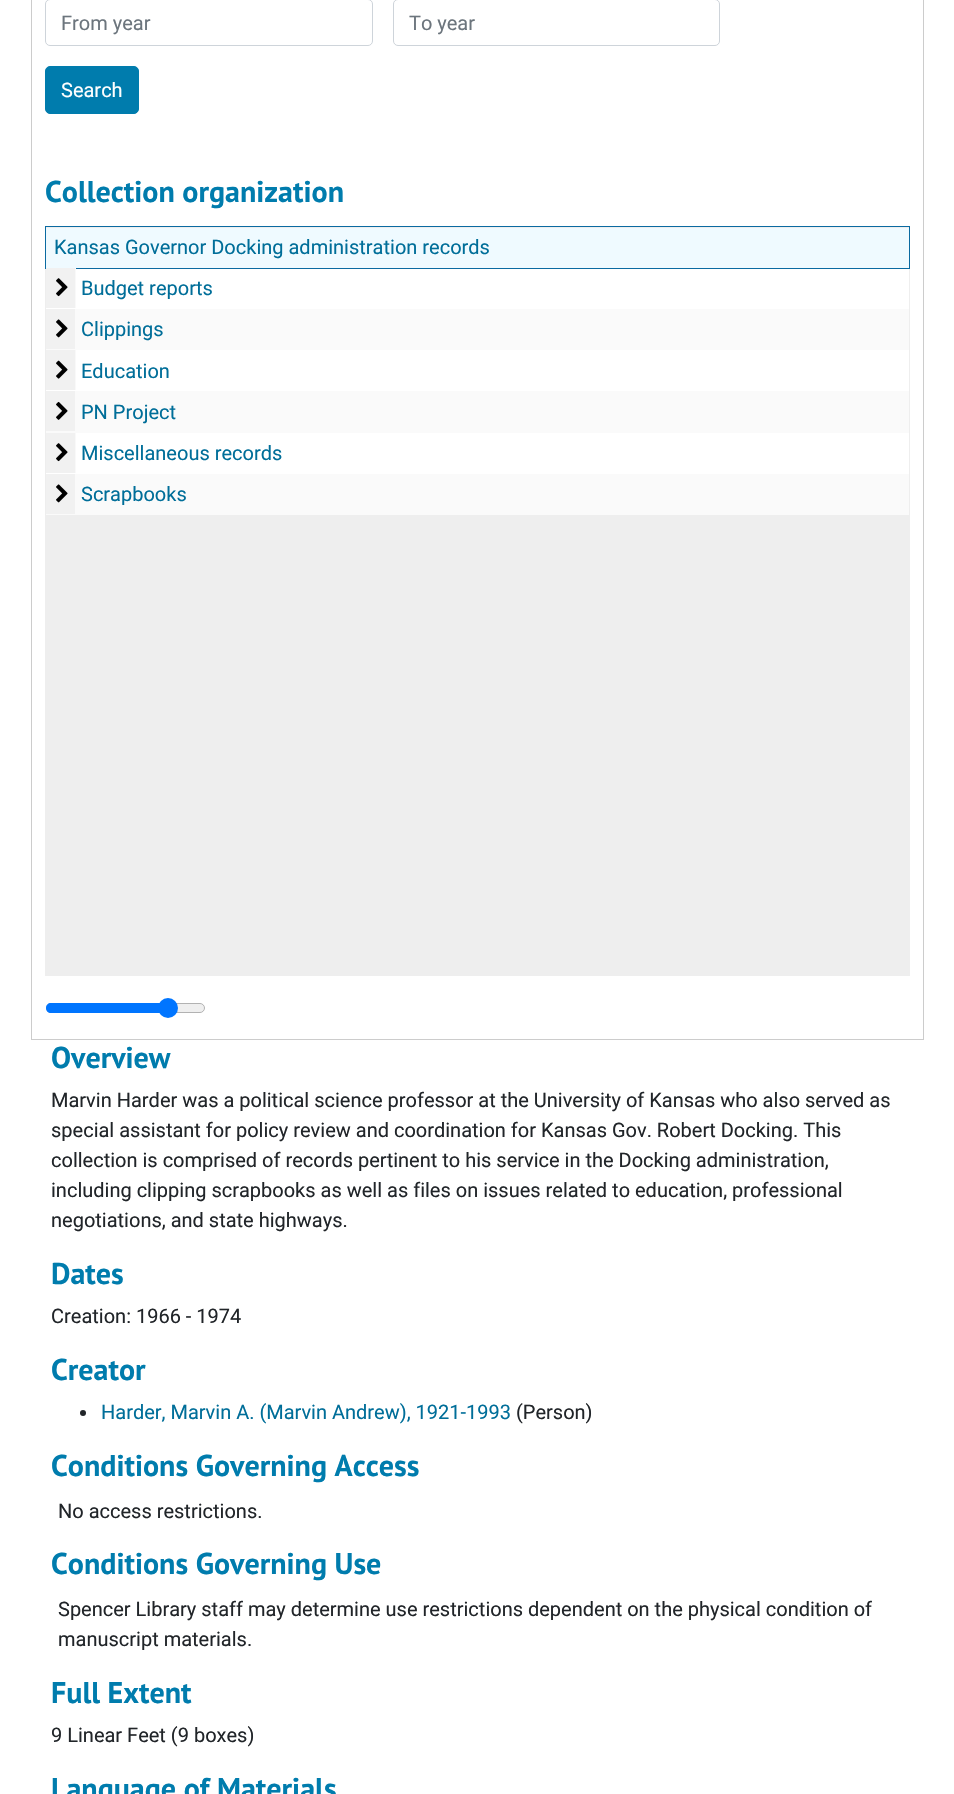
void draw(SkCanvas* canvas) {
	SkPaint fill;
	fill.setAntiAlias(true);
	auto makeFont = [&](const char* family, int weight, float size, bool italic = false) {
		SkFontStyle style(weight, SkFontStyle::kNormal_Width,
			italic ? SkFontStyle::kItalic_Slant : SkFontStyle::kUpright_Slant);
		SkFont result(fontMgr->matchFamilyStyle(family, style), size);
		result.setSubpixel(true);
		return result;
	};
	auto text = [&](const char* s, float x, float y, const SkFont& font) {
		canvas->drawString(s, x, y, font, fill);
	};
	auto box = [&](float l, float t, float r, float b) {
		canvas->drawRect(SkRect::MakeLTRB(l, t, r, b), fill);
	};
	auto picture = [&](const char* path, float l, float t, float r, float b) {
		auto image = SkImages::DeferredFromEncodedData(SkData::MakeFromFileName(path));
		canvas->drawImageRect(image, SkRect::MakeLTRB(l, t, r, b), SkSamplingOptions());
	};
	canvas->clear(0xFFFFFFFF);
	fill.setStyle(SkPaint::kStroke_Style);
	fill.setStrokeWidth(1);
	fill.setColor(0xFFCCCCCC);
	canvas->drawRect(SkRect::MakeLTRB(31.5f, -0.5f, 923.5f, 1039.5f), fill);
	fill.setColor(0xFFCED4DA);
	canvas->drawRoundRect(SkRect::MakeLTRB(45.5f, -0.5f, 372.5f, 45.5f), 4.5f, 4.5f, fill);
	canvas->drawRoundRect(SkRect::MakeLTRB(393.5f, -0.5f, 719.5f, 45.5f), 4.5f, 4.5f, fill);
	fill.setStyle(SkPaint::kFill_Style);
	fill.setColor(0xFF007CAD);
	canvas->drawRoundRect(SkRect::MakeLTRB(45.5f, 66.5f, 138.5f, 113.5f), 4.5f, 4.5f, fill);
	fill.setStyle(SkPaint::kStroke_Style);
	canvas->drawRoundRect(SkRect::MakeLTRB(45.5f, 66.5f, 138.5f, 113.5f), 4.5f, 4.5f, fill);
	fill.setStyle(SkPaint::kFill_Style);
	fill.setColor(0xFFEEEEEE);
	box(45, 227, 910, 976);
	fill.setStyle(SkPaint::kStroke_Style);
	fill.setColor(0xFF0A6AA1);
	canvas->drawRect(SkRect::MakeLTRB(45.5f, 226.5f, 909.5f, 268.5f), fill);
	fill.setStyle(SkPaint::kFill_Style);
	fill.setColor(0xFFEFFAFF);
	box(46, 228, 909, 268);
	fill.setColor(0xFFFFFFFF);
	box(46, 269, 909, 309);
	{
		const SkColor colors[] = {0xFFF1F1F1, 0xFFF1F1F1, 0xFFFFFFFF, 0xFFF1F1F1, 0xFFF1F1F1, 0xFFFFFFFF};
		const float stops[] = {0, 0.48f, 0.5f, 0.5f, 0.98f, 1};
		const SkPoint ends[] = {{46, 288}, {106, 288}};
		fill.setShader(SkGradientShader::MakeLinear(ends, colors, stops, 6, SkTileMode::kClamp));
		fill.setAlpha(255);
	}
	box(46, 268, 76, 308);
	picture("image0.png", 56, 278, 68, 297);
	fill.setShader(nullptr);
	fill.setColor(0xFFFAFAFA);
	box(46, 309, 909, 350);
	{
		const SkColor colors[] = {0xFFF1F1F1, 0xFFF1F1F1, 0xFFFFFFFF, 0xFFF1F1F1, 0xFFF1F1F1, 0xFFFFFFFF};
		const float stops[] = {0, 0.48f, 0.5f, 0.5f, 0.98f, 1};
		const SkPoint ends[] = {{46, 329}, {106, 329}};
		fill.setShader(SkGradientShader::MakeLinear(ends, colors, stops, 6, SkTileMode::kClamp));
		fill.setAlpha(255);
	}
	box(46, 309, 75, 349);
	picture("image1.png", 56, 319, 68, 338);
	fill.setShader(nullptr);
	fill.setColor(0xFFFFFFFF);
	box(46, 350, 909, 391);
	{
		const SkColor colors[] = {0xFFF1F1F1, 0xFFF1F1F1, 0xFFFFFFFF, 0xFFF1F1F1, 0xFFF1F1F1, 0xFFFFFFFF};
		const float stops[] = {0, 0.48f, 0.5f, 0.5f, 0.98f, 1};
		const SkPoint ends[] = {{46, 370}, {106, 370}};
		fill.setShader(SkGradientShader::MakeLinear(ends, colors, stops, 6, SkTileMode::kClamp));
		fill.setAlpha(255);
	}
	box(46, 350, 76, 390);
	picture("image2.png", 56, 360, 68, 379);
	fill.setShader(nullptr);
	fill.setColor(0xFFFAFAFA);
	box(46, 391, 909, 433);
	{
		const SkColor colors[] = {0xFFF1F1F1, 0xFFF1F1F1, 0xFFFFFFFF, 0xFFF1F1F1, 0xFFF1F1F1, 0xFFFFFFFF};
		const float stops[] = {0, 0.48f, 0.5f, 0.5f, 0.98f, 1};
		const SkPoint ends[] = {{46, 411}, {106, 411}};
		fill.setShader(SkGradientShader::MakeLinear(ends, colors, stops, 6, SkTileMode::kClamp));
		fill.setAlpha(255);
	}
	box(46, 391, 75, 431);
	picture("image3.png", 56, 401, 68, 420);
	fill.setShader(nullptr);
	fill.setColor(0xFFFFFFFF);
	box(46, 433, 909, 474);
	{
		const SkColor colors[] = {0xFFF1F1F1, 0xFFF1F1F1, 0xFFFFFFFF, 0xFFF1F1F1, 0xFFF1F1F1, 0xFFFFFFFF};
		const float stops[] = {0, 0.48f, 0.5f, 0.5f, 0.98f, 1};
		const SkPoint ends[] = {{46, 453}, {106, 453}};
		fill.setShader(SkGradientShader::MakeLinear(ends, colors, stops, 6, SkTileMode::kClamp));
		fill.setAlpha(255);
	}
	box(46, 433, 76, 473);
	picture("image0.png", 56, 443, 68, 462);
	fill.setShader(nullptr);
	fill.setColor(0xFFFAFAFA);
	box(46, 474, 909, 515);
	{
		const SkColor colors[] = {0xFFF1F1F1, 0xFFF1F1F1, 0xFFFFFFFF, 0xFFF1F1F1, 0xFFF1F1F1, 0xFFFFFFFF};
		const float stops[] = {0, 0.48f, 0.5f, 0.5f, 0.98f, 1};
		const SkPoint ends[] = {{46, 494}, {106, 494}};
		fill.setShader(SkGradientShader::MakeLinear(ends, colors, stops, 6, SkTileMode::kClamp));
		fill.setAlpha(255);
	}
	box(46, 474, 75, 514);
	picture("image1.png", 56, 484, 68, 503);
	fill.setShader(nullptr);
	fill.setColor(0xFFEFEFEF);
	canvas->drawRoundRect(SkRect::MakeLTRB(46.5f, 1003.5f, 204.5f, 1012.5f), 4.5f, 4.5f, fill);
	fill.setStyle(SkPaint::kStroke_Style);
	fill.setColor(0xFFB2B2B2);
	canvas->drawRoundRect(SkRect::MakeLTRB(46.5f, 1003.5f, 204.5f, 1012.5f), 4.5f, 4.5f, fill);
	fill.setStyle(SkPaint::kFill_Style);
	fill.setColor(0xFF0075FF);
	canvas->drawPath(SkPathBuilder().moveTo(51, 1003).lineTo(168, 1003).lineTo(168, 1013).lineTo(51, 1013).cubicTo(48, 1013, 46, 1011, 46, 1008).cubicTo(46, 1005, 48, 1003, 51, 1003).close().detach(), fill);
	canvas->drawCircle(168, 1008, 10, fill);
	fill.setColor(0xFF212529);
	canvas->drawCircle(83, 1413, 3, fill);
	auto font1 = makeFont("Roboto", 400, 20);
	fill.setColor(0xFF6C757D);
	text("From year", 61, 30, font1);
	text("To year", 409, 30, font1);
	fill.setColor(0xFFFFFFFF);
	text("Search", 61, 97, font1);
	auto font2 = makeFont("PT Sans", 700, 30);
	fill.setColor(0xFF007CAD);
	text("Collection organization", 45, 202, font2);
	fill.setColor(0xFF006E99);
	text("Kansas Governor Docking administration records", 54, 254, font1);
	text("Budget reports", 81, 295, font1);
	text("Clippings", 81, 336, font1);
	text("Education", 81, 378, font1);
	text("PN Project", 81, 419, font1);
	text("Miscellaneous records", 81, 460, font1);
	text("Scrapbooks", 81, 501, font1);
	fill.setColor(0xFF007CAD);
	text("Overview", 51, 1068, font2);
	fill.setColor(0xFF212529);
	text("Marvin Harder was a political science professor at the University of Kansas who also served as", 51, 1107, font1);
	text("special assistant for policy review and coordination for Kansas Gov. Robert Docking. This", 51, 1137, font1);
	text("collection is comprised of records pertinent to his service in the Docking administration,", 51, 1167, font1);
	text("including clipping scrapbooks as well as files on issues related to education, professional", 51, 1197, font1);
	text("negotiations, and state highways.", 51, 1227, font1);
	fill.setColor(0xFF007CAD);
	text("Dates", 51, 1284, font2);
	fill.setColor(0xFF212529);
	text("Creation: 1966 - 1974", 51, 1323, font1);
	fill.setColor(0xFF007CAD);
	text("Creator", 51, 1380, font2);
	fill.setColor(0xFF006E99);
	text("Harder, Marvin A. (Marvin Andrew), 1921-1993", 101, 1419, font1);
	fill.setColor(0xFF212529);
	text("(Person)", 516, 1419, font1);
	fill.setColor(0xFF007CAD);
	text("Conditions Governing Access", 51, 1476, font2);
	fill.setColor(0xFF212529);
	text("No access restrictions.", 58, 1518, font1);
	fill.setColor(0xFF007CAD);
	text("Conditions Governing Use", 51, 1574, font2);
	fill.setColor(0xFF212529);
	text("Spencer Library staff may determine use restrictions dependent on the physical condition of", 58, 1616, font1);
	text("manuscript materials.", 58, 1646, font1);
	fill.setColor(0xFF007CAD);
	text("Full Extent", 51, 1703, font2);
	fill.setColor(0xFF212529);
	text("9 Linear Feet (9 boxes)", 51, 1742, font1);
	fill.setColor(0xFF007CAD);
	text("Language of Materials", 51, 1799, font2);
}
